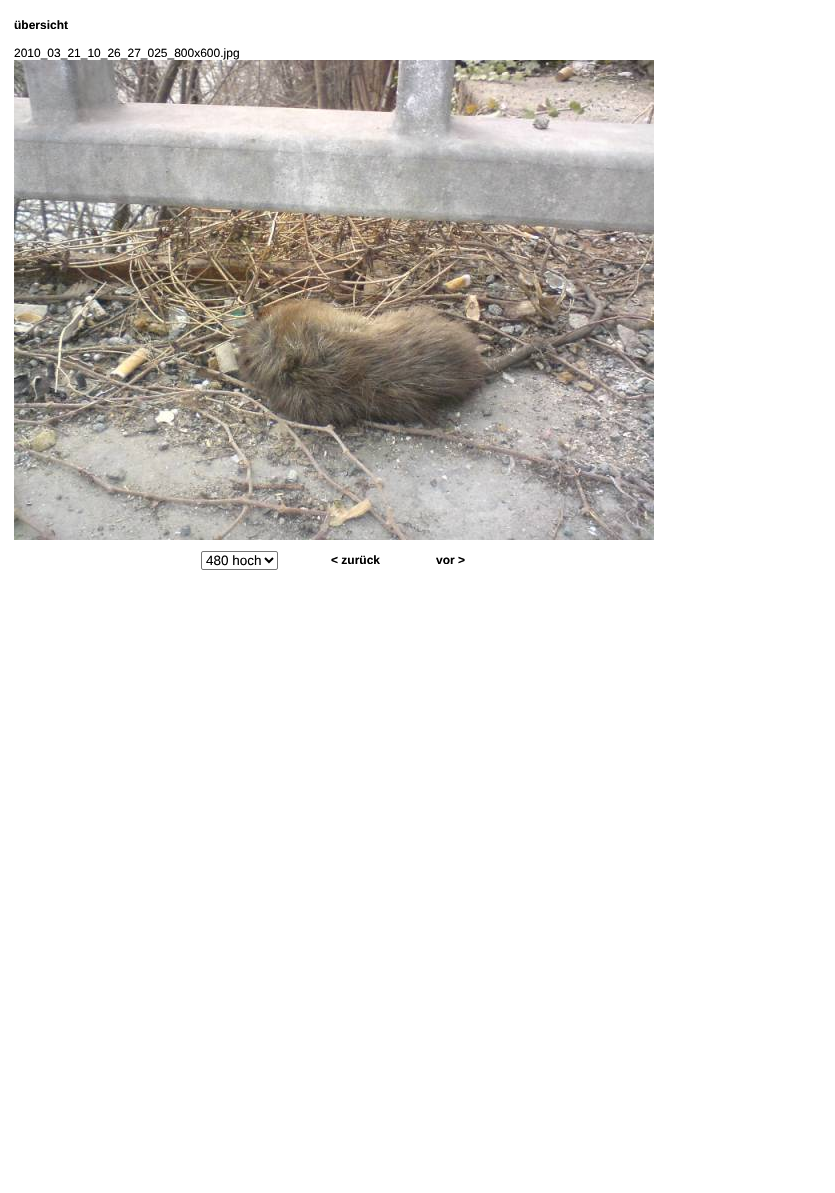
void draw(SkCanvas* canvas) {
	SkPaint fill;
	fill.setAntiAlias(true);
	auto makeFont = [&](const char* family, int weight, float size, bool italic = false) {
		SkFontStyle style(weight, SkFontStyle::kNormal_Width,
			italic ? SkFontStyle::kItalic_Slant : SkFontStyle::kUpright_Slant);
		SkFont result(fontMgr->matchFamilyStyle(family, style), size);
		result.setSubpixel(true);
		return result;
	};
	auto text = [&](const char* s, float x, float y, const SkFont& font) {
		canvas->drawString(s, x, y, font, fill);
	};
	auto picture = [&](const char* path, float l, float t, float r, float b) {
		auto image = SkImages::DeferredFromEncodedData(SkData::MakeFromFileName(path));
		canvas->drawImageRect(image, SkRect::MakeLTRB(l, t, r, b), SkSamplingOptions());
	};
	canvas->clear(0xFFFFFFFF);
	picture("image0.png", 14, 60, 654, 540);
	fill.setStyle(SkPaint::kStroke_Style);
	fill.setStrokeWidth(1);
	fill.setColor(0xFF767676);
	canvas->drawRoundRect(SkRect::MakeLTRB(201.5f, 551.5f, 277.5f, 569.5f), 1.5f, 1.5f, fill);
	fill.setStrokeWidth(2);
	fill.setColor(0xFF000000);
	canvas->drawPath(SkPathBuilder().moveTo(265, 558).lineTo(269, 562).lineTo(273, 558).detach(), fill);
	auto font1 = makeFont("Liberation Sans", 700, 12);
	fill.setStyle(SkPaint::kFill_Style);
	text("übersicht", 14, 29, font1);
	auto font2 = makeFont("Liberation Sans", 400, 12);
	text("2010_03_21_10_26_27_025_800x600.jpg", 14, 57, font2);
	auto font3 = makeFont("Liberation Sans", 400, 13.5f);
	text("480 hoch", 206, 565, font3);
	text("< zurück", 331, 564, font1);
	text("vor >", 436, 564, font1);
}
